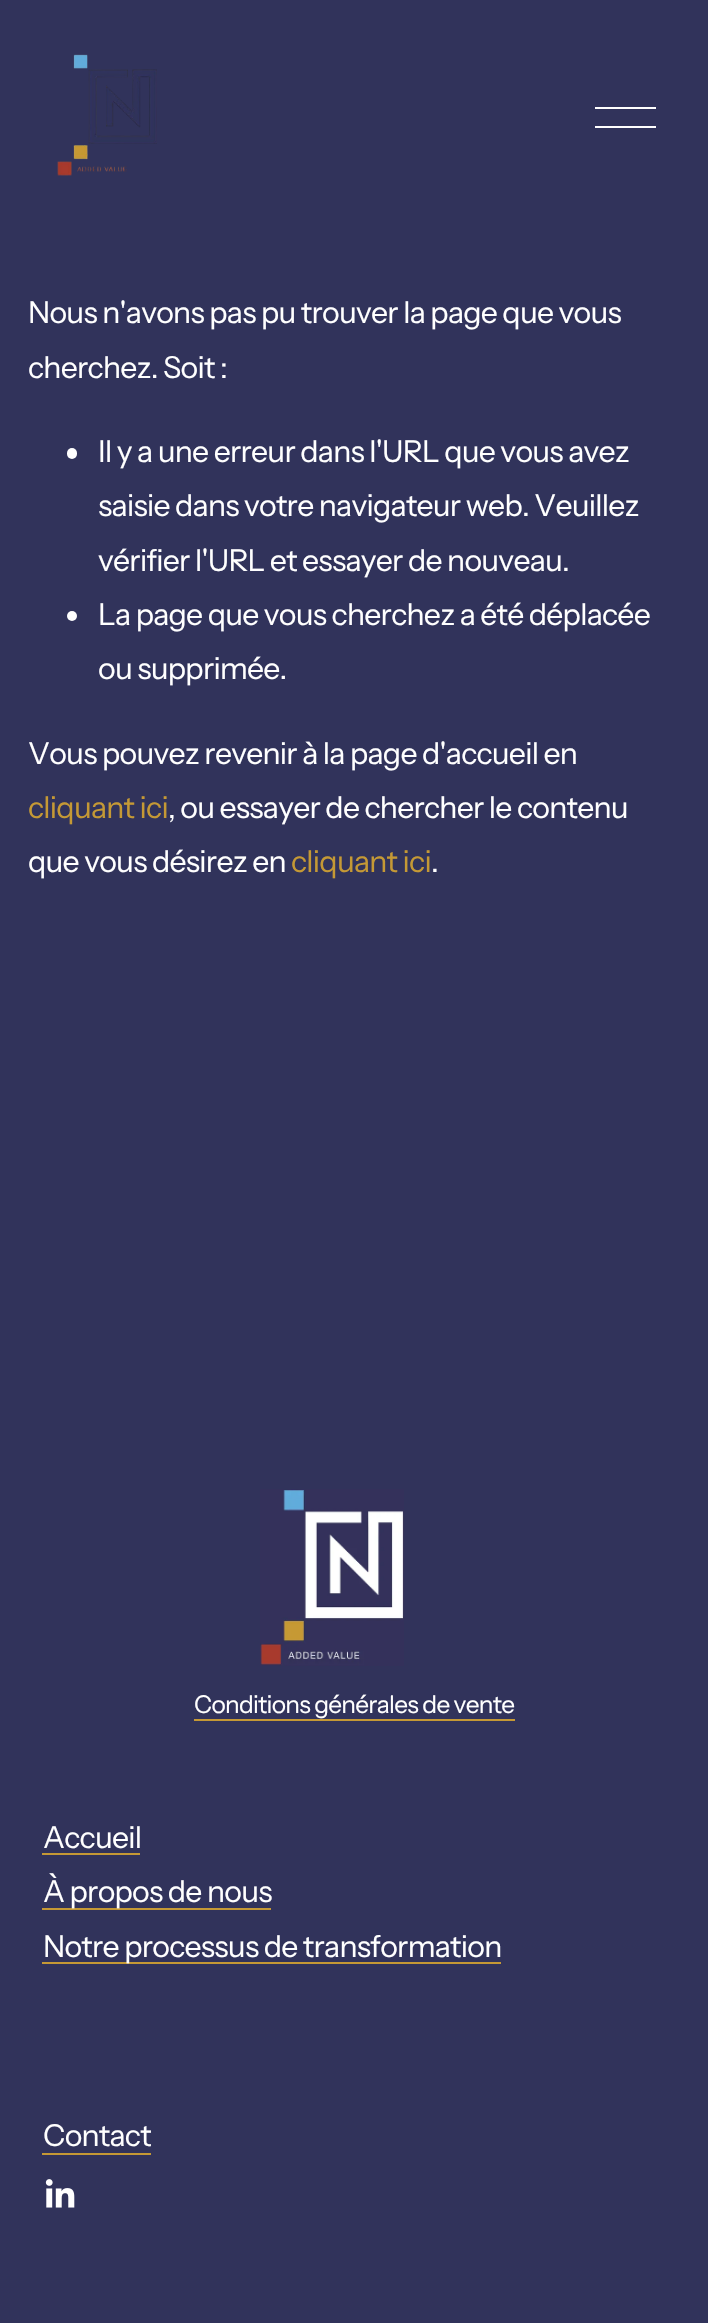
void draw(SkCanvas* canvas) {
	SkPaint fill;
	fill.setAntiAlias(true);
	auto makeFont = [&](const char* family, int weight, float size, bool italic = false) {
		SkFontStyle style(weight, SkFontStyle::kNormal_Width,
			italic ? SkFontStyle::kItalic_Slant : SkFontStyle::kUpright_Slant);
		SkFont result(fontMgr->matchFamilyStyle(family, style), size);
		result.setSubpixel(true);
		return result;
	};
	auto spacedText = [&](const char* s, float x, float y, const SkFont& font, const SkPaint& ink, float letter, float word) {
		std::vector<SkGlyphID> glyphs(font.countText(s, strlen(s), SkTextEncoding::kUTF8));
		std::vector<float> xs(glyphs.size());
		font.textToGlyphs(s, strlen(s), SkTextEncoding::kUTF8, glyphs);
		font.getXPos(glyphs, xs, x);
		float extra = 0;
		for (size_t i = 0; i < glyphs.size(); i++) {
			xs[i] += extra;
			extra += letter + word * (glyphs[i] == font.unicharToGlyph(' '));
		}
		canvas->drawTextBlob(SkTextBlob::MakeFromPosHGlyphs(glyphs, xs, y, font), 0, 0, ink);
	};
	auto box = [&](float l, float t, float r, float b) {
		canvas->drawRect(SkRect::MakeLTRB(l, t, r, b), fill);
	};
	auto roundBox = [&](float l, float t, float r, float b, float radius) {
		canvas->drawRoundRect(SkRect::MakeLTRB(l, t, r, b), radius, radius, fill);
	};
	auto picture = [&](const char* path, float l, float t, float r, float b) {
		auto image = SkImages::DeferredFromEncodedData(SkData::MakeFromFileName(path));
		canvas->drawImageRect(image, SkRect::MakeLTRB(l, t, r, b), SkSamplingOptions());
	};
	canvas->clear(0xFF31335B);
	picture("image0.png", 57, 54, 157, 176);
	fill.setColor(0xFFFFFFFF);
	box(595, 107, 656, 109);
	box(595, 126, 656, 128);
	roundBox(67, 448, 77, 459, 5);
	canvas->drawCircle(72, 616, 5, fill);
	picture("image1.png", 260, 1489, 404, 1666);
	fill.setColor(0xFFC59935);
	box(194, 1719, 515, 1721);
	box(42, 1853, 140, 1855);
	box(42, 1908, 271, 1910);
	box(42, 1962, 501, 1964);
	box(42, 2153, 151, 2155);
	picture("image2.png", 45, 2179, 75, 2208);
	auto font1 = makeFont("Instrument Sans", 400, 30.2f);
	fill.setColor(0xFFFFFFFF);
	spacedText("Nous n'avons pas pu trouver la page que vous", 28, 323, font1, fill, -0.75f, 0);
	spacedText("cherchez. Soit :", 28, 378, font1, fill, -0.75f, 0);
	spacedText("Il y a une erreur dans l'URL que vous avez", 98, 462, font1, fill, -0.75f, 0);
	spacedText("saisie dans votre navigateur web. Veuillez", 98, 516, font1, fill, -0.75f, 0);
	spacedText("vérifier l'URL et essayer de nouveau.", 98, 571, font1, fill, -0.75f, 0);
	spacedText("La page que vous cherchez a été déplacée", 98, 625, font1, fill, -0.75f, 0);
	spacedText("ou supprimée.", 98, 679, font1, fill, -0.75f, 0);
	spacedText("Vous pouvez revenir à la page d'accueil en", 28, 764, font1, fill, -0.75f, 0);
	fill.setColor(0xFFC59935);
	spacedText("cliquant ici", 28, 818, font1, fill, -0.75f, 0);
	fill.setColor(0xFFFFFFFF);
	spacedText(", ou essayer de chercher le contenu", 168, 818, font1, fill, -0.75f, 0);
	spacedText("que vous désirez en", 28, 872, font1, fill, -0.75f, 0);
	fill.setColor(0xFFC59935);
	spacedText("cliquant ici", 291, 872, font1, fill, -0.75f, 0);
	fill.setColor(0xFFFFFFFF);
	spacedText(".", 431, 872, font1, fill, -0.75f, 0);
	auto font2 = makeFont("Instrument Sans", 400, 24.5f);
	spacedText("Conditions générales de vente", 194, 1713, font2, fill, -0.75f, 0);
	spacedText("Accueil", 43, 1848, font1, fill, -0.75f, 0);
	spacedText("À propos de nous", 43, 1902, font1, fill, -0.75f, 0);
	spacedText("Notre processus de transformation", 43, 1957, font1, fill, -0.75f, 0);
	spacedText("Contact", 43, 2146, font1, fill, -0.75f, 0);
}
